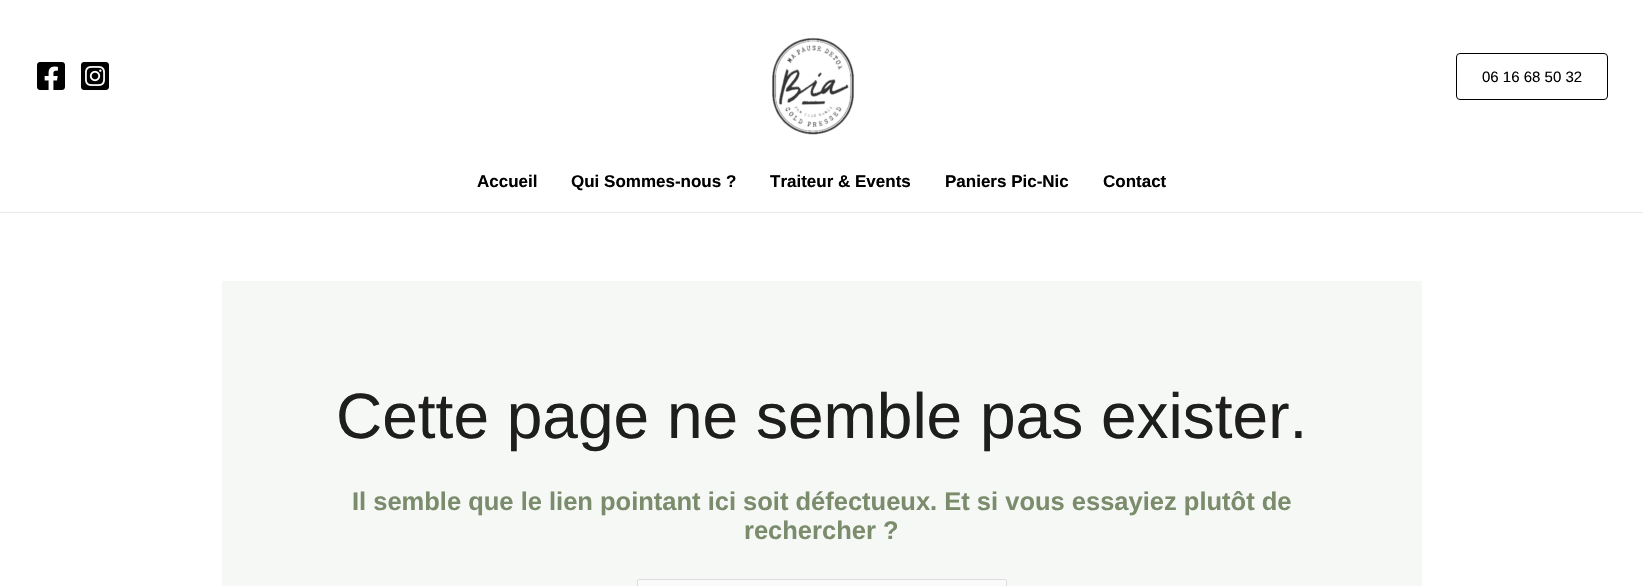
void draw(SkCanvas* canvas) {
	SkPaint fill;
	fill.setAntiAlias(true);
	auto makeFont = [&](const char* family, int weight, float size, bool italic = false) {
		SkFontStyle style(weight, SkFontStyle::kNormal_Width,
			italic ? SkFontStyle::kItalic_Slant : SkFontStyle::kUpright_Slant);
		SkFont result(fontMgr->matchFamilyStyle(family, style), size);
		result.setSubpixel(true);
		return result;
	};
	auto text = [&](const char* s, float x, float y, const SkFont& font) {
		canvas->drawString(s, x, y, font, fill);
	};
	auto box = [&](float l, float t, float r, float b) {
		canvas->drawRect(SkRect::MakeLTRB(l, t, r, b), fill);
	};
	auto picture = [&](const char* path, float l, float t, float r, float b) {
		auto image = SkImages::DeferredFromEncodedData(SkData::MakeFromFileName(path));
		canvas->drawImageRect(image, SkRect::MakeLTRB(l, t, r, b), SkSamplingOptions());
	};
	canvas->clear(0xFFFFFFFF);
	picture("image0.png", 37, 62, 65, 90);
	picture("image1.png", 81, 62, 109, 90);
	picture("image2.png", 772, 37, 855, 135);
	fill.setStyle(SkPaint::kStroke_Style);
	fill.setStrokeWidth(1);
	fill.setColor(0xFF000000);
	canvas->drawRoundRect(SkRect::MakeLTRB(1456.5f, 53.5f, 1607.5f, 99.5f), 3.5f, 3.5f, fill);
	fill.setStyle(SkPaint::kFill_Style);
	fill.setColor(0xFFEAEAEA);
	box(0, 212, 1643, 213);
	fill.setColor(0xFFF6F8F5);
	box(222, 281, 1422, 586);
	fill.setColor(0xFFFAFAFA);
	canvas->drawRoundRect(SkRect::MakeLTRB(637.5f, 579.5f, 1006.5f, 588.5f), 1.5f, 1.5f, fill);
	fill.setStyle(SkPaint::kStroke_Style);
	fill.setColor(0xFFDDDDDD);
	canvas->drawRoundRect(SkRect::MakeLTRB(637.5f, 579.5f, 1006.5f, 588.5f), 1.5f, 1.5f, fill);
	auto font1 = makeFont("Liberation Sans", 400, 15);
	fill.setStyle(SkPaint::kFill_Style);
	fill.setColor(0xFF000000);
	text("06 16 68 50 32", 1482, 82, font1);
	auto font2 = makeFont("Liberation Sans", 700, 17);
	text("Accueil", 477, 187, font2);
	text("Qui Sommes-nous ?", 571, 187, font2);
	text("Traiteur & Events", 770, 187, font2);
	text("Paniers Pic-Nic", 945, 187, font2);
	text("Contact", 1103, 187, font2);
	auto font3 = makeFont("Liberation Sans", 400, 64);
	fill.setColor(0xFF1E1E1C);
	text("Cette page ne semble pas exister.", 336, 438, font3);
	auto font4 = makeFont("Liberation Sans", 700, 25.5f);
	fill.setColor(0xFF7B8C6D);
	text("Il semble que le lien pointant ici soit défectueux. Et si vous essayiez plutôt de", 352, 510, font4);
	text("rechercher ?", 744, 539, font4);
}
